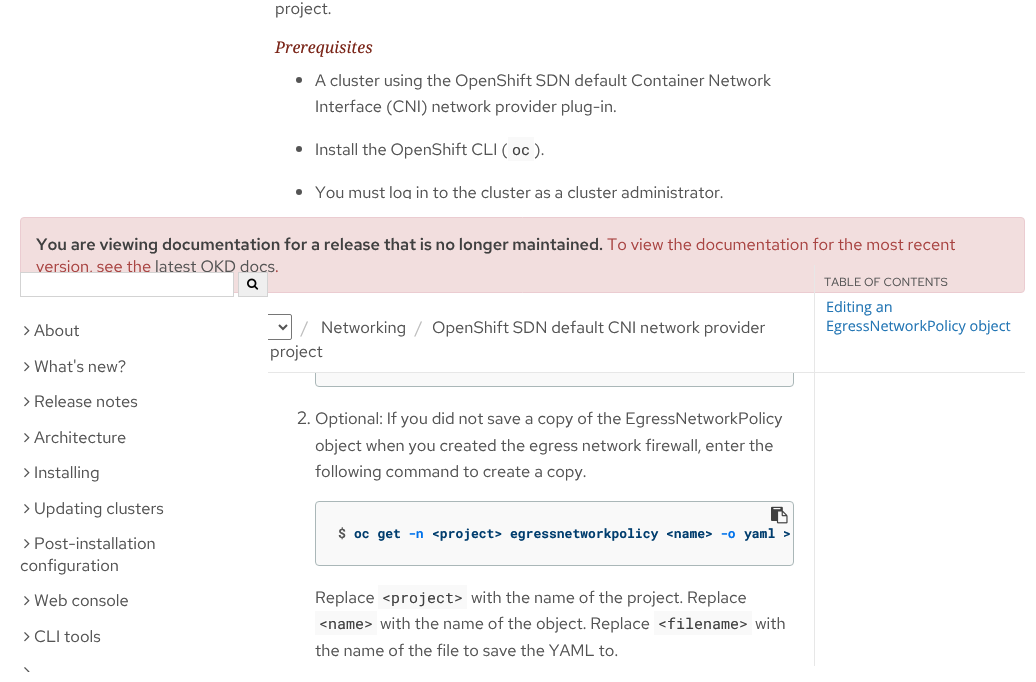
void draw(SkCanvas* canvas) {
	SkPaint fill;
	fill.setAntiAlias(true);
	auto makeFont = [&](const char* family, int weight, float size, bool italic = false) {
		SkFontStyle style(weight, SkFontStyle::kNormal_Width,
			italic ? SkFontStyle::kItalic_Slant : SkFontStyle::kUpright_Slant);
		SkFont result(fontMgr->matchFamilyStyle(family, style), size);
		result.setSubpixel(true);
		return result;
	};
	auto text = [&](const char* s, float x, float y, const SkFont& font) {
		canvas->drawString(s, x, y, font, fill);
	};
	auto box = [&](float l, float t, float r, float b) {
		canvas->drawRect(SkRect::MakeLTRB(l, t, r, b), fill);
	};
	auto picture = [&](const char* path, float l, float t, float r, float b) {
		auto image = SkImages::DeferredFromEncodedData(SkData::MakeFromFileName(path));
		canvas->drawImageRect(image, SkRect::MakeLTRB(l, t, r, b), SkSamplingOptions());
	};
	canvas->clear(0xFFFFFFFF);
	fill.setStyle(SkPaint::kStroke_Style);
	fill.setStrokeWidth(1);
	fill.setColor(0xFF767676);
	canvas->drawRoundRect(SkRect::MakeLTRB(228.5f, 314.5f, 291.5f, 339.5f), 1.5f, 1.5f, fill);
	fill.setStyle(SkPaint::kFill_Style);
	fill.setColor(0xFFFFFFFF);
	box(228, 314, 268, 340);
	picture("image1.png", 24, 326, 30, 336);
	picture("image1.png", 24, 362, 30, 372);
	picture("image1.png", 24, 397, 30, 407);
	picture("image1.png", 24, 433, 30, 443);
	picture("image1.png", 24, 468, 30, 478);
	picture("image1.png", 24, 504, 30, 514);
	picture("image1.png", 24, 539, 30, 549);
	picture("image1.png", 24, 596, 30, 606);
	picture("image1.png", 24, 632, 30, 642);
	picture("image2.png", 24, 667, 30, 672);
	fill.setColor(0xFF545454);
	canvas->drawCircle(299, 80, 3, fill);
	canvas->drawCircle(299, 149, 3, fill);
	fill.setColor(0xFFF9F9F9);
	box(508, 137, 534, 161);
	fill.setColor(0xFF545454);
	canvas->drawCircle(299, 192, 3, fill);
	fill.setColor(0xFFF9F9F9);
	canvas->drawRoundRect(SkRect::MakeLTRB(315.5f, 322.5f, 793.5f, 386.5f), 3.5f, 3.5f, fill);
	fill.setStyle(SkPaint::kStroke_Style);
	fill.setColor(0xFFAAB7B8);
	canvas->drawRoundRect(SkRect::MakeLTRB(315.5f, 322.5f, 793.5f, 386.5f), 3.5f, 3.5f, fill);
	fill.setStyle(SkPaint::kFill_Style);
	fill.setColor(0xFFF9F9F9);
	canvas->drawRoundRect(SkRect::MakeLTRB(315.5f, 501.5f, 793.5f, 565.5f), 3.5f, 3.5f, fill);
	fill.setStyle(SkPaint::kStroke_Style);
	fill.setColor(0xFFAAB7B8);
	canvas->drawRoundRect(SkRect::MakeLTRB(315.5f, 501.5f, 793.5f, 565.5f), 3.5f, 3.5f, fill);
	picture("image3.png", 771, 506, 788, 524);
	fill.setStyle(SkPaint::kFill_Style);
	fill.setColor(0xFFF9F9F9);
	box(378, 585, 467, 609);
	box(315, 611, 377, 635);
	box(654, 611, 752, 635);
	fill.setColor(0xFFE7E7E7);
	box(268, 372, 1025, 373);
	fill.setStyle(SkPaint::kStroke_Style);
	fill.setStrokeWidth(2);
	fill.setColor(0xFF545454);
	canvas->drawPath(SkPathBuilder().moveTo(279, 325).lineTo(283, 329).lineTo(287, 325).detach(), fill);
	auto font1 = makeFont("Red Hat Text", 400, 16.55f);
	fill.setStyle(SkPaint::kFill_Style);
	text("About", 34, 336, font1);
	text("What's new?", 34, 372, font1);
	text("Release notes", 34, 407, font1);
	text("Architecture", 34, 443, font1);
	text("Installing", 34, 478, font1);
	text("Updating clusters", 34, 514, font1);
	text("Post-installation", 34, 549, font1);
	text("configuration", 20, 571, font1);
	text("Web console", 34, 606, font1);
	text("CLI tools", 34, 642, font1);
	text("project.", 275, 14, font1);
	auto font2 = makeFont("Noto Serif", 400, 16, true);
	fill.setColor(0xFF7A2518);
	text("Prerequisites", 275, 53, font2);
	fill.setColor(0xFF545454);
	text("A cluster using the OpenShift SDN default Container Network", 315, 86, font1);
	text("Interface (CNI) network provider plug-in.", 315, 112, font1);
	text("Install the OpenShift CLI (", 315, 155, font1);
	auto font3 = makeFont("Roboto Mono", 400, 15);
	fill.setColor(0xFF404040);
	text("oc", 512, 155, font3);
	fill.setColor(0xFF545454);
	text(").", 534, 155, font1);
	text("You must log in to the cluster as a cluster administrator.", 315, 198, font1);
	auto font4 = makeFont("Red Hat Text", 400, 18);
	text("2.", 297, 424, font4);
	text("Optional: If you did not save a copy of the EgressNetworkPolicy", 315, 424, font1);
	text("object when you created the egress network firewall, enter the", 315, 451, font1);
	text("following command to create a copy.", 315, 477, font1);
	auto font5 = makeFont("Roboto Mono", 700, 13);
	text("$", 338, 538, font5);
	fill.setColor(0xFF003D6E);
	text("oc get", 354, 538, font5);
	fill.setColor(0xFF0072EB);
	text("-n", 408, 538, font5);
	fill.setColor(0xFF003D6E);
	text("<project> egressnetworkpolicy <name>", 432, 538, font5);
	fill.setColor(0xFF0072EB);
	text("-o", 720, 538, font5);
	fill.setColor(0xFF003D6E);
	text("yaml >", 744, 538, font5);
	fill.setColor(0xFF545454);
	text("Replace", 315, 603, font1);
	fill.setColor(0xFF404040);
	text("<project>", 382, 603, font3);
	fill.setColor(0xFF545454);
	text("with the name of the project. Replace", 471, 603, font1);
	fill.setColor(0xFF404040);
	text("<name>", 319, 629, font3);
	fill.setColor(0xFF545454);
	text("with the name of the object. Replace", 380, 629, font1);
	fill.setColor(0xFF404040);
	text("<filename>", 658, 629, font3);
	fill.setColor(0xFF545454);
	text("with", 755, 629, font1);
	text("the name of the file to save the YAML to.", 315, 656, font1);
	auto font6 = makeFont("Open Sans", 400, 14.4f);
	fill.setColor(0xFF2275B4);
	text("Editing an", 826, 312, font6);
	text("EgressNetworkPolicy object", 826, 331, font6);
	fill.setColor(0xFFFFFFFF);
	box(315, 199, 794, 372);
	fill.setColor(0xFFF2DEDE);
	canvas->drawRoundRect(SkRect::MakeLTRB(20.5f, 217.5f, 1024.5f, 292.5f), 3.5f, 3.5f, fill);
	fill.setStyle(SkPaint::kStroke_Style);
	fill.setStrokeWidth(1);
	fill.setColor(0xFFEBCCD1);
	canvas->drawRoundRect(SkRect::MakeLTRB(20.5f, 217.5f, 1024.5f, 292.5f), 3.5f, 3.5f, fill);
	auto font7 = makeFont("Red Hat Text", 400, 11.75f);
	fill.setStyle(SkPaint::kFill_Style);
	fill.setColor(0xFF545454);
	text("TABLE OF CONTENTS", 824, 286, font7);
	fill.setColor(0xFFE7E7E7);
	box(814, 265, 815, 666);
	auto font8 = makeFont("Red Hat Text", 500, 16.55f);
	fill.setColor(0xFF404040);
	text("You are viewing documentation for a release that is no longer maintained.", 36, 250, font8);
	fill.setColor(0xFFA94442);
	text("To view the documentation for the most recent", 607, 250, font1);
	text("version, see the", 36, 272, font1);
	fill.setColor(0xFFFFFFFF);
	box(21, 273, 233, 293);
	fill.setColor(0xFF545454);
	text("latest OKD docs", 155, 272, font1);
	fill.setColor(0xFFEFEFEF);
	canvas->drawRect(SkRect::MakeLTRB(238.5f, 272.5f, 267.5f, 296.5f), fill);
	fill.setStyle(SkPaint::kStroke_Style);
	fill.setColor(0xFFD3D3D3);
	canvas->drawRect(SkRect::MakeLTRB(238.5f, 272.5f, 267.5f, 296.5f), fill);
	picture("image0.png", 247, 278, 259, 290);
	canvas->drawRect(SkRect::MakeLTRB(20.5f, 272.5f, 233.5f, 296.5f), fill);
	fill.setStyle(SkPaint::kFill_Style);
	fill.setColor(0xFFA94442);
	text(".", 275, 272, font1);
	fill.setColor(0xFFBDBDBD);
	text("/", 301, 333, font1);
	fill.setColor(0xFF545454);
	text("Networking", 321, 333, font1);
	fill.setColor(0xFFBDBDBD);
	text("/", 415, 333, font1);
	fill.setColor(0xFF545454);
	text("OpenShift SDN default CNI network provider", 432, 333, font1);
	text("project", 270, 357, font1);
}
